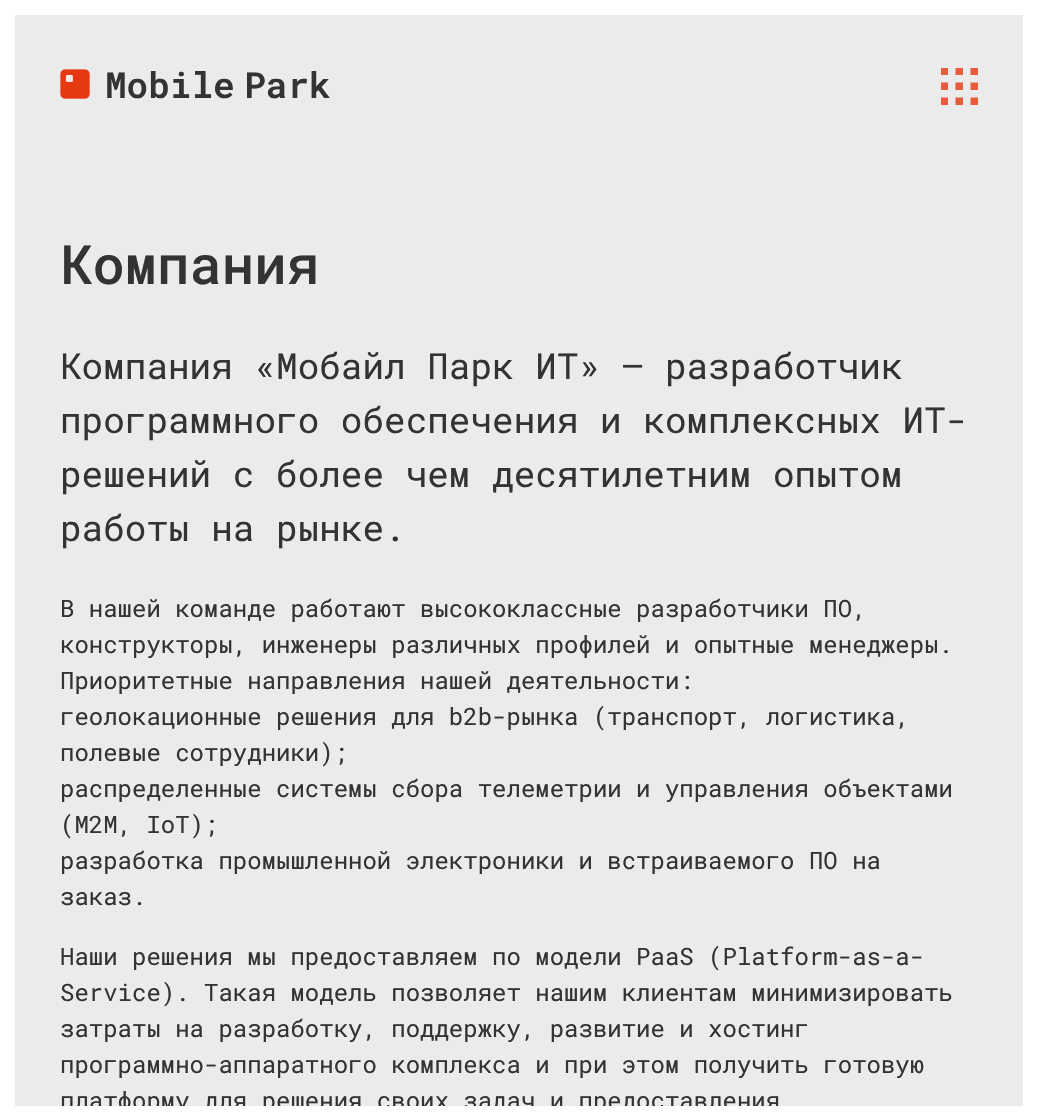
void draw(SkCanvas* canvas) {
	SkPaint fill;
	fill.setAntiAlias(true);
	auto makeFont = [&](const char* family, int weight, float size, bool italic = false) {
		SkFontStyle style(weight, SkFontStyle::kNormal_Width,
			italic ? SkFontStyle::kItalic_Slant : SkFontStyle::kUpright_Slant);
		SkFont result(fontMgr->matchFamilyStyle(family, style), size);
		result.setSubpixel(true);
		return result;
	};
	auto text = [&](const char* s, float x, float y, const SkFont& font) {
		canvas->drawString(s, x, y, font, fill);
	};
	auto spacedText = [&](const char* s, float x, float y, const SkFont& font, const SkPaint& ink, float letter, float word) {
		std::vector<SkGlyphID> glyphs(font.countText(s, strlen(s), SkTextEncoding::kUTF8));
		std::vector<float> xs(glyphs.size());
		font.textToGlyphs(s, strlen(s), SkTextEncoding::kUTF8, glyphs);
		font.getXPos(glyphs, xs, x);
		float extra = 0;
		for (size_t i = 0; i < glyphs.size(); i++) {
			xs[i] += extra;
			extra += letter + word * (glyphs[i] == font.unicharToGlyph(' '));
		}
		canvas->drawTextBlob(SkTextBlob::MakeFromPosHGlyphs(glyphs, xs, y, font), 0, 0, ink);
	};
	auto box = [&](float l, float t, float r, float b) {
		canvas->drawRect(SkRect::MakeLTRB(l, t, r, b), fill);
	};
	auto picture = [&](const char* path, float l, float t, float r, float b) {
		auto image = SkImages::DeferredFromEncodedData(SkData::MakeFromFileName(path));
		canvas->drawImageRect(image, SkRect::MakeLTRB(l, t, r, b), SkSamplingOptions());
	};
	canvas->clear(0xFFEBEBEB);
	fill.setColor(0xFFFFFFFF);
	box(0, 15, 15, 1106);
	box(0, 0, 1023, 15);
	picture("image0.png", 60, 69, 90, 99);
	picture("image1.png", 941, 68, 978, 105);
	box(1023, 0, 1037, 1120);
	auto font1 = makeFont("Roboto Mono", 600, 36);
	fill.setColor(0xFF333333);
	spacedText("Mobile Park", 105, 98, font1, fill, 0, -12);
	auto font2 = makeFont("Roboto Mono", 500, 54);
	text("Компания", 60, 284, font2);
	auto font3 = makeFont("Roboto Mono", 400, 36);
	text("Компания «Мобайл Парк ИТ» – разработчик", 60, 379, font3);
	text("программного обеспечения и комплексных ИТ-", 60, 433, font3);
	text("решений с более чем десятилетним опытом", 60, 487, font3);
	text("работы на рынке.", 60, 541, font3);
	auto font4 = makeFont("Roboto Mono", 400, 24);
	text("В нашей команде работают высококлассные разработчики ПО,", 60, 617, font4);
	text("конструкторы, инженеры различных профилей и опытные менеджеры.", 60, 653, font4);
	text("Приоритетные направления нашей деятельности:", 60, 689, font4);
	text("геолокационные решения для b2b-рынка (транспорт, логистика,", 60, 725, font4);
	text("полевые сотрудники);", 60, 761, font4);
	text("распределенные системы сбора телеметрии и управления объектами", 60, 797, font4);
	text("(M2M, IoT);", 60, 833, font4);
	text("разработка промышленной электроники и встраиваемого ПО на", 60, 869, font4);
	text("заказ.", 60, 905, font4);
	text("Наши решения мы предоставляем по модели PaaS (Platform-as-a-", 60, 965, font4);
	text("Service). Такая модель позволяет нашим клиентам минимизировать", 60, 1001, font4);
	text("затраты на разработку, поддержку, развитие и хостинг", 60, 1037, font4);
	text("программно-аппаратного комплекса и при этом получить готовую", 60, 1073, font4);
	text("платформу для решения своих задач и предоставления", 60, 1109, font4);
	fill.setColor(0xFFFFFFFF);
	box(0, 1106, 1023, 1120);
}
